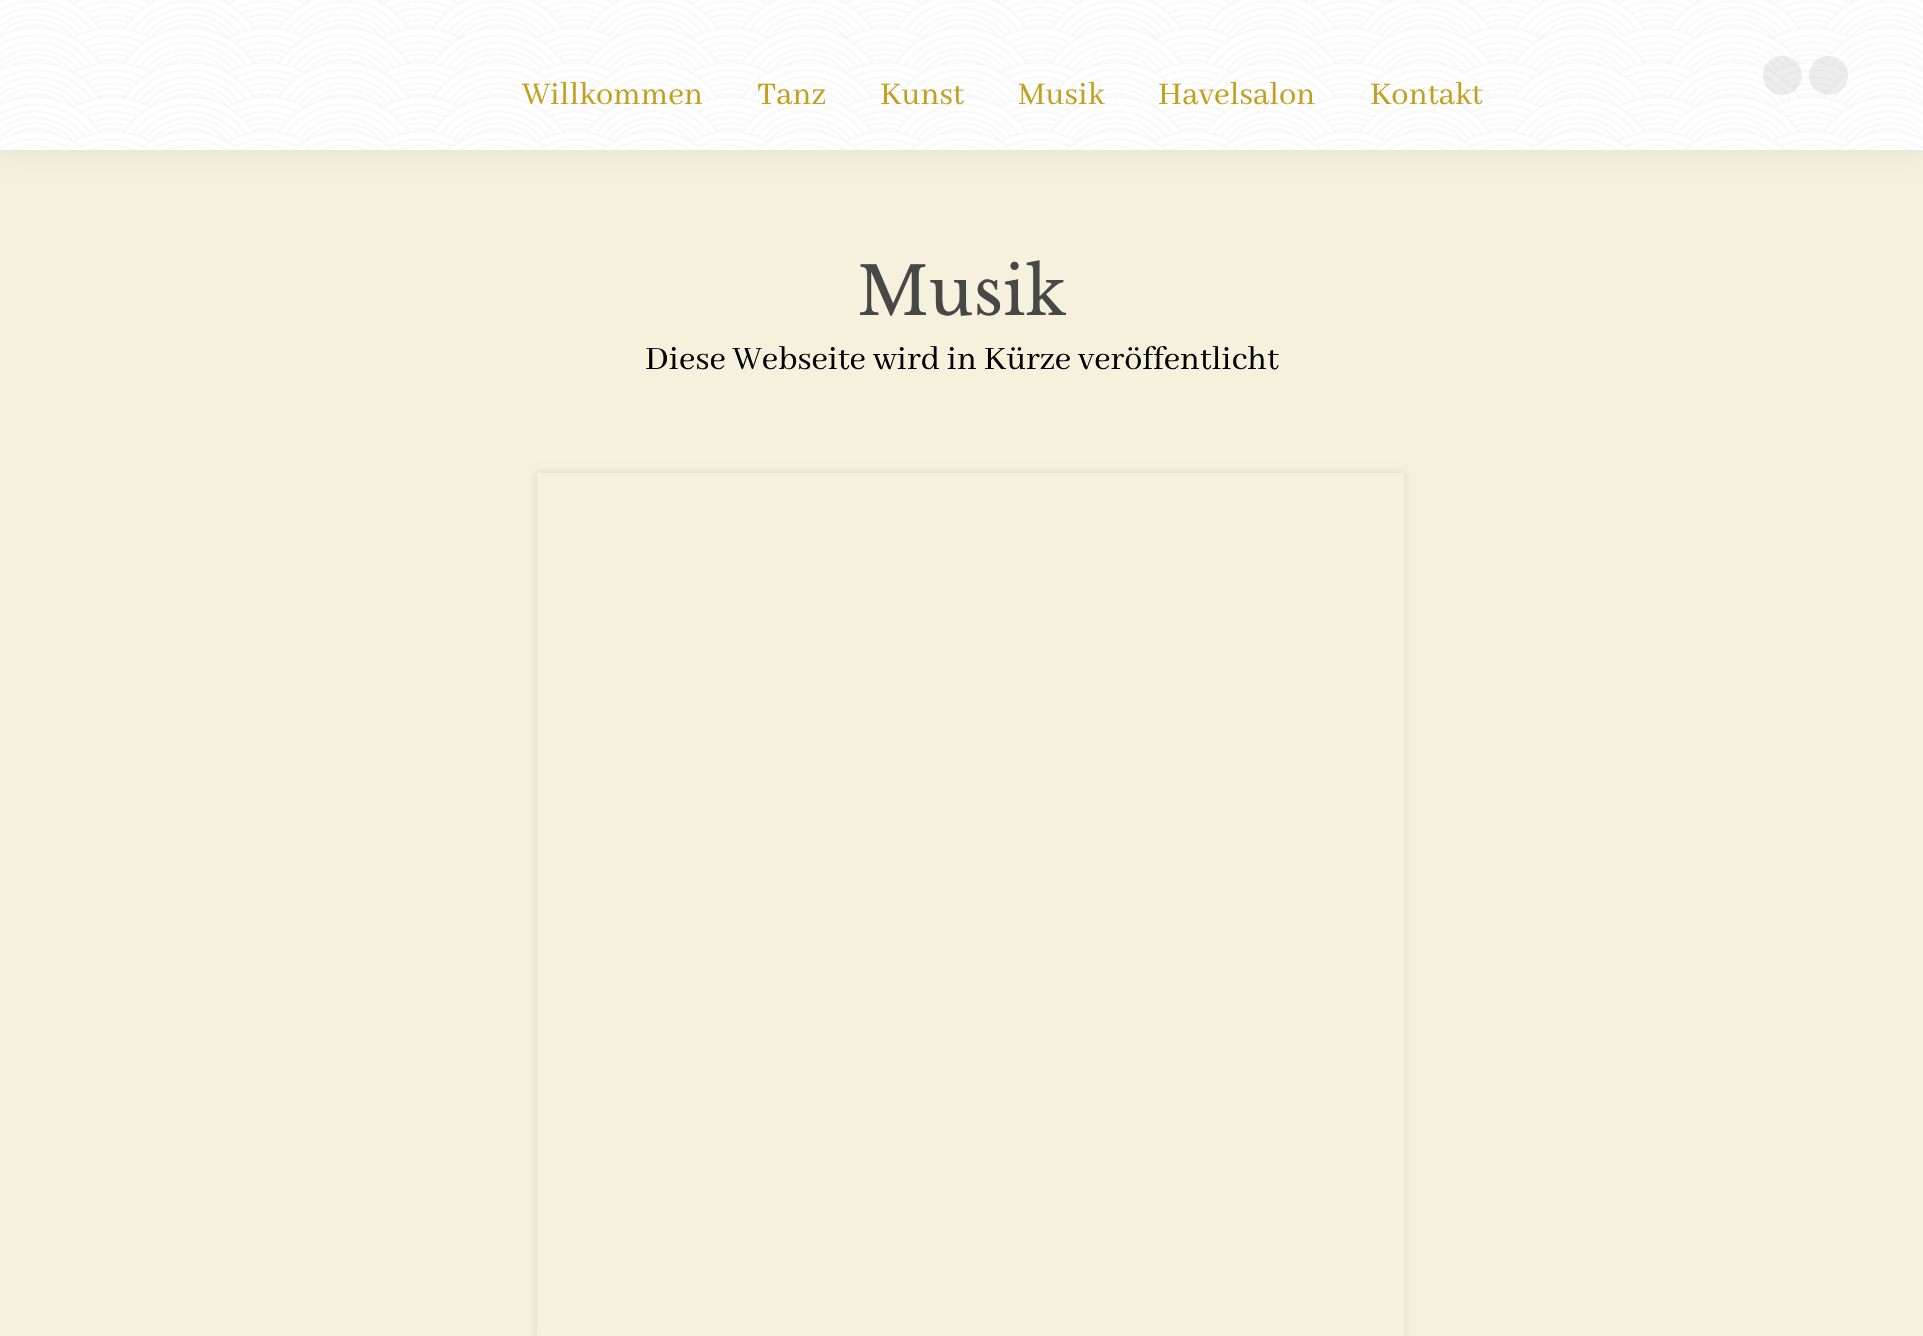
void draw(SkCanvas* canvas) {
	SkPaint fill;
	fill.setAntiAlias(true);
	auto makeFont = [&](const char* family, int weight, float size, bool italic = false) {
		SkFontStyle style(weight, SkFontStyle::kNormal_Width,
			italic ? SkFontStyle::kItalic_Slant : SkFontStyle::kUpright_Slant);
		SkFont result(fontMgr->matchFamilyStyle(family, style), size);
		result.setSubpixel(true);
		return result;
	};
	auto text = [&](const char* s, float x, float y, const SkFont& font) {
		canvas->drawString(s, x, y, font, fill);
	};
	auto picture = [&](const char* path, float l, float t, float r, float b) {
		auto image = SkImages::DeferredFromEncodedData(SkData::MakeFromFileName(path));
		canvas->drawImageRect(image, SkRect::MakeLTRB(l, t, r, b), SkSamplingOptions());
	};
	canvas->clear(0xFFF6F1DD);
	fill.setColor(0x12000000);
	fill.setMaskFilter(SkMaskFilter::MakeBlur(kNormal_SkBlurStyle, 11));
	canvas->drawRect(SkRect::MakeLTRB(-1, -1, 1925, 152), fill);
	fill.setMaskFilter(nullptr);
	picture("image0.png", 0, 0, 1923, 150);
	fill.setColor(0x33A3A4AA);
	canvas->drawCircle(1782.5f, 75.5f, 19.5f, fill);
	canvas->drawCircle(1828.5f, 75.5f, 19.5f, fill);
	canvas->save();
	canvas->clipPath(SkPathBuilder(SkPathFillType::kEvenOdd).moveTo(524, 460).lineTo(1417, 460).lineTo(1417, 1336).lineTo(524, 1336).close().moveTo(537, 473).lineTo(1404, 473).lineTo(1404, 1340).lineTo(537, 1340).close().detach(), true);
	fill.setColor(0x1A000000);
	fill.setMaskFilter(SkMaskFilter::MakeBlur(kNormal_SkBlurStyle, 4));
	canvas->drawRect(SkRect::MakeLTRB(537, 473, 1404, 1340), fill);
	fill.setMaskFilter(nullptr);
	canvas->restore();
	auto font1 = makeFont("Abhaya Libre", 400, 34.5f);
	fill.setColor(0xFFC1A01E);
	text("Willkommen", 522, 104, font1);
	text("Tanz", 757, 104, font1);
	text("Kunst", 880, 104, font1);
	text("Musik", 1018, 104, font1);
	text("Havelsalon", 1158, 104, font1);
	text("Kontakt", 1370, 104, font1);
	auto font2 = makeFont("Libre Baskerville", 400, 66);
	fill.setColor(0xFF494848);
	text("Musik", 857, 315, font2);
	auto font3 = makeFont("Abhaya Libre", 400, 36);
	fill.setColor(0xFF000000);
	text("Diese Webseite wird in Kürze veröffentlicht", 645, 369, font3);
}
